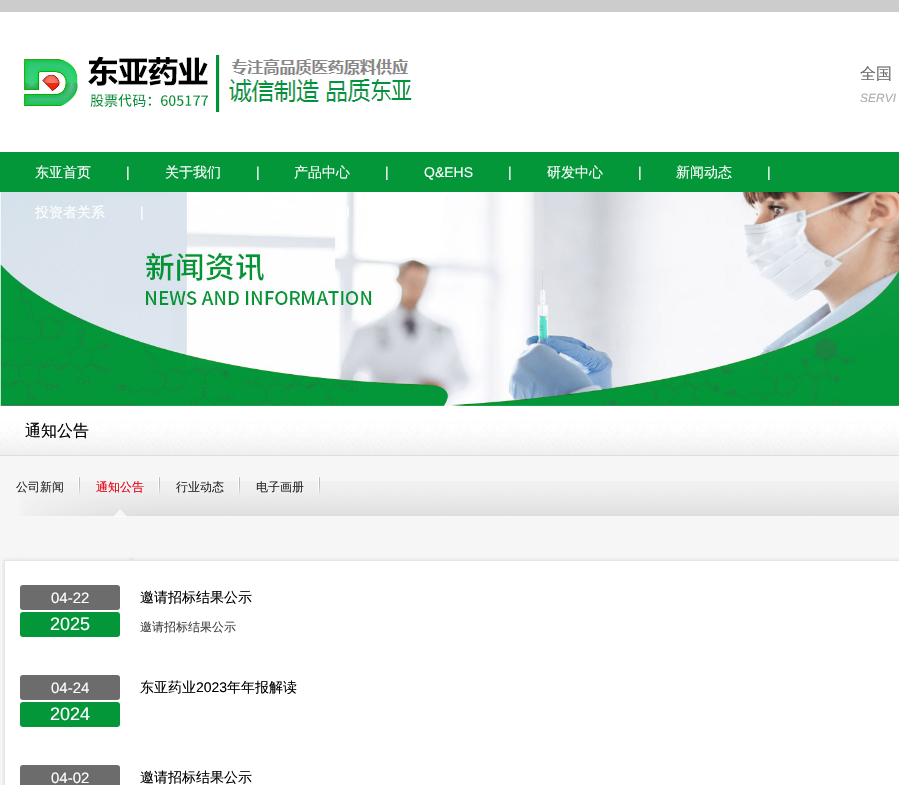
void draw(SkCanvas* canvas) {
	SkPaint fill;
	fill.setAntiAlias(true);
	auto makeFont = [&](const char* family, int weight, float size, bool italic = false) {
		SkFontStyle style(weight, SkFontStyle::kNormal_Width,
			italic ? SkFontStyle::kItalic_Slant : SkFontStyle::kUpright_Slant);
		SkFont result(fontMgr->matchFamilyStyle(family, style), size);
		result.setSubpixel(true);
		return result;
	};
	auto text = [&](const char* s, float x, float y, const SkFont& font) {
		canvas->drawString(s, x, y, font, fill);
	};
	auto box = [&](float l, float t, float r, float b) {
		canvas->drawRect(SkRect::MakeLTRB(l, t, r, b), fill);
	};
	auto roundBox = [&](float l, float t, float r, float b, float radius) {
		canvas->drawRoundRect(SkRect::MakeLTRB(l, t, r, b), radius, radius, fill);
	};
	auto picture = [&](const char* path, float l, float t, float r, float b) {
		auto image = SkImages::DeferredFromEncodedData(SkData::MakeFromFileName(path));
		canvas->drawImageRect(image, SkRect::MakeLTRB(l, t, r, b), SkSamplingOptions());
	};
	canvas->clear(0xFFF6F6F6);
	fill.setColor(0xFFFFFFFF);
	box(0, 12, 899, 152);
	fill.setColor(0xFFCCCCCC);
	box(0, 0, 899, 12);
	picture("image0.png", 24, 55, 412, 112);
	fill.setColor(0xFF039739);
	box(0, 152, 899, 192);
	picture("image1.png", 0, 192, 899, 406);
	picture("image2.png", 0, 406, 899, 456);
	picture("image3.png", 20, 481, 899, 516);
	picture("image4.png", 78, 477, 80, 495);
	picture("image5.png", 158, 477, 160, 495);
	picture("image6.png", 114, 509, 127, 517);
	picture("image7.png", 238, 477, 240, 495);
	picture("image5.png", 318, 477, 320, 495);
	picture("image8.png", 2, 557, 899, 566);
	picture("image9.png", 2, 565, 899, 785);
	fill.setColor(0xFF6C6C6C);
	roundBox(20, 585, 120, 610, 3);
	fill.setColor(0xFF039739);
	roundBox(20, 612, 120, 637, 3);
	fill.setColor(0xFF6C6C6C);
	roundBox(20, 675, 120, 700, 3);
	fill.setColor(0xFF039739);
	roundBox(20, 702, 120, 727, 3);
	fill.setColor(0xFF6C6C6C);
	roundBox(20, 765, 120, 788, 3);
	auto font1 = makeFont("WenQuanYi Zen Hei", 500, 16);
	fill.setColor(0xFF6B6B6B);
	text("全国", 860, 79, font1);
	auto font2 = makeFont("Liberation Sans", 400, 12, true);
	fill.setColor(0xFFADADAD);
	text("SERVI", 860, 102, font2);
	auto font3 = makeFont("WenQuanYi Zen Hei", 500, 14);
	fill.setColor(0xFFFFFFFF);
	text("东亚首页", 35, 177, font3);
	auto font4 = makeFont("Liberation Sans", 400, 14);
	text("|", 126, 177, font4);
	text("关于我们", 165, 177, font3);
	text("|", 256, 177, font4);
	text("产品中心", 294, 177, font3);
	text("|", 385, 177, font4);
	text("Q&EHS", 424, 177, font4);
	text("|", 508, 177, font4);
	text("研发中心", 547, 177, font3);
	text("|", 638, 177, font4);
	text("新闻动态", 676, 177, font3);
	text("|", 767, 177, font4);
	text("投资者关系", 35, 217, font3);
	text("|", 140, 217, font4);
	text("I", 346, 217, font4);
	fill.setColor(0xFF000000);
	text("通知公告", 25, 436, font1);
	auto font5 = makeFont("WenQuanYi Zen Hei", 500, 12);
	fill.setColor(0xFF2B2929);
	text("公司新闻", 16, 491, font5);
	fill.setColor(0xFFE60012);
	text("通知公告", 96, 491, font5);
	fill.setColor(0xFF2B2929);
	text("行业动态", 176, 491, font5);
	text("电子画册", 256, 491, font5);
	auto font6 = makeFont("Liberation Sans", 400, 15);
	fill.setColor(0xFFFFFFFF);
	text("04-22", 51, 603, font6);
	auto font7 = makeFont("Liberation Sans", 400, 18);
	text("2025", 50, 630, font7);
	fill.setColor(0xFF000000);
	text("邀请招标结果公示", 140, 602, font3);
	fill.setColor(0xFF424242);
	text("邀请招标结果公示", 140, 631, font5);
	fill.setColor(0xFFFFFFFF);
	text("04-24", 51, 693, font6);
	text("2024", 50, 720, font7);
	fill.setColor(0xFF000000);
	text("东亚药业", 140, 692, font3);
	text("2023", 196, 692, font4);
	text("年年报解读", 227, 692, font3);
	fill.setColor(0xFFFFFFFF);
	text("04-02", 51, 783, font6);
	fill.setColor(0xFF000000);
	text("邀请招标结果公示", 140, 782, font3);
}
